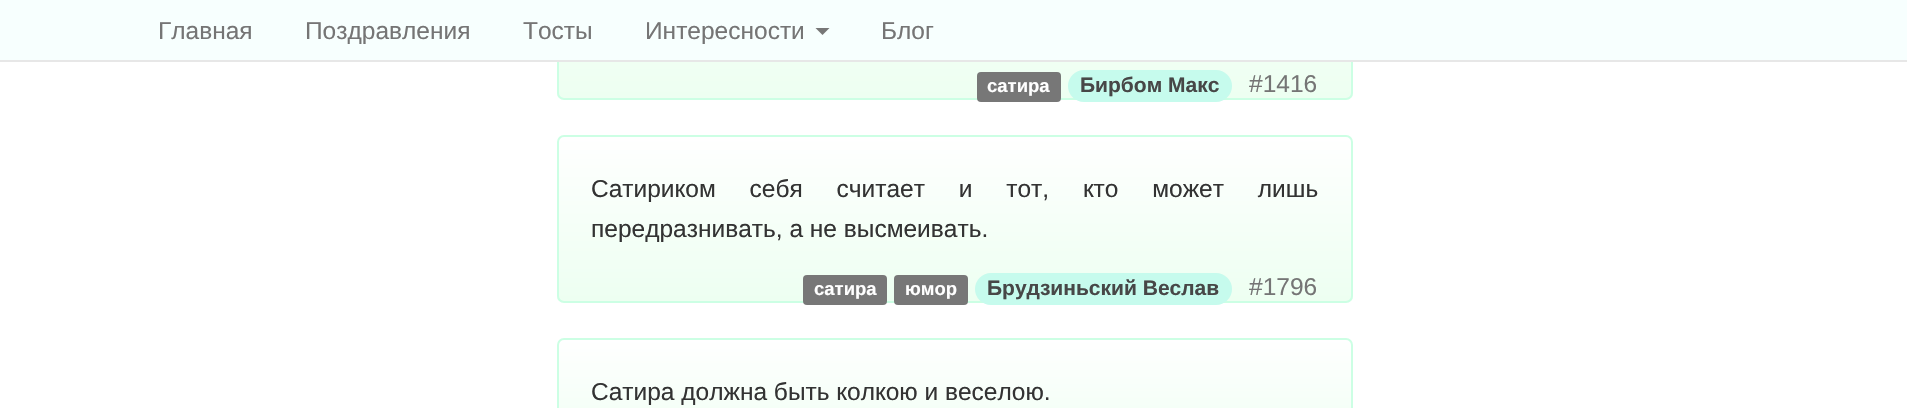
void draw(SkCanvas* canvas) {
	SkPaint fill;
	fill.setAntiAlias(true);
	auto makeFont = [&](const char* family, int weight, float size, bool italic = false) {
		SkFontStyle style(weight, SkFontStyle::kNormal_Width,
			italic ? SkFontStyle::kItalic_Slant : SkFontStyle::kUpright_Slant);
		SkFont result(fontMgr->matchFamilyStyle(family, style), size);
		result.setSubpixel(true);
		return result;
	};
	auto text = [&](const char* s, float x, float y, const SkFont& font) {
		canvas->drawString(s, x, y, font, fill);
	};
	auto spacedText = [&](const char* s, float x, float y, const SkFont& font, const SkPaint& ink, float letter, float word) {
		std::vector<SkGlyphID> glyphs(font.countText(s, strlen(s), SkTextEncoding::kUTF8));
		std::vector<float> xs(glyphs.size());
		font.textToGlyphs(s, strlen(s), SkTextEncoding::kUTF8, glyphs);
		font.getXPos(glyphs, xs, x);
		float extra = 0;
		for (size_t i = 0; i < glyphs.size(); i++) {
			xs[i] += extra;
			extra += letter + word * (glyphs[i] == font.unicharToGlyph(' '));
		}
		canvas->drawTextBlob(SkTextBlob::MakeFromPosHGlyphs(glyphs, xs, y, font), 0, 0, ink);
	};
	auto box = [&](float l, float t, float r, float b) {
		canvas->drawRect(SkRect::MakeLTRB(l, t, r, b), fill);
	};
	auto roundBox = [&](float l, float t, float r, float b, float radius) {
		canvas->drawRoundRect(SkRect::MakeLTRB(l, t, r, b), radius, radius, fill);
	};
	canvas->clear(0xFFFFFFFF);
	canvas->save();
	canvas->clipPath(SkPathBuilder().moveTo(564, -110).lineTo(1346, -110).cubicTo(1350, -110, 1353, -107, 1353, -103).lineTo(1353, 93).cubicTo(1353, 97, 1350, 100, 1346, 100).lineTo(564, 100).cubicTo(560, 100, 557, 97, 557, 93).lineTo(557, -103).cubicTo(557, -107, 560, -110, 564, -110).close().detach(), true);
	{
		const SkColor colors[] = {0xFFFFFFFF, 0xFFEDFFF1};
		const float stops[] = {0, 1};
		const SkPoint ends[] = {{955, -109}, {955, 98}};
		fill.setShader(SkGradientShader::MakeLinear(ends, colors, stops, 2, SkTileMode::kClamp));
		fill.setAlpha(255);
	}
	box(557, 62, 1353, 98);
	canvas->restore();
	fill.setStyle(SkPaint::kStroke_Style);
	fill.setStrokeWidth(2);
	fill.setShader(nullptr);
	fill.setColor(0xFFCCFFE4);
	canvas->drawRoundRect(SkRect::MakeLTRB(558, -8, 1352, 99), 6, 6, fill);
	fill.setStyle(SkPaint::kFill_Style);
	fill.setColor(0xFFF7FFFE);
	box(0, 0, 1907, 60);
	fill.setColor(0xFFE7E7E7);
	box(0, 60, 1907, 62);
	fill.setColor(0xFF777777);
	canvas->drawPath(SkPathBuilder().moveTo(815.5f, 28).lineTo(829.5f, 28).lineTo(822.5f, 35).close().detach(), fill);
	roundBox(977, 72, 1061, 102, 4);
	fill.setColor(0xFFC6FBED);
	roundBox(1068, 70, 1232, 102, 16);
	canvas->save();
	canvas->clipPath(SkPathBuilder().moveTo(564, 135).lineTo(1346, 135).cubicTo(1350, 135, 1353, 138, 1353, 142).lineTo(1353, 296).cubicTo(1353, 300, 1350, 303, 1346, 303).lineTo(564, 303).cubicTo(560, 303, 557, 300, 557, 296).lineTo(557, 142).cubicTo(557, 138, 560, 135, 564, 135).close().detach(), true);
	{
		const SkColor colors[] = {0xFFFFFFFF, 0xFFEDFFF1};
		const float stops[] = {0, 1};
		const SkPoint ends[] = {{955, 136}, {955, 301}};
		fill.setShader(SkGradientShader::MakeLinear(ends, colors, stops, 2, SkTileMode::kClamp));
		fill.setAlpha(255);
	}
	box(557, 137, 1353, 301);
	canvas->restore();
	fill.setStyle(SkPaint::kStroke_Style);
	fill.setShader(nullptr);
	fill.setColor(0xFFCCFFE4);
	canvas->drawRoundRect(SkRect::MakeLTRB(558, 136, 1352, 302), 6, 6, fill);
	fill.setStyle(SkPaint::kFill_Style);
	fill.setColor(0xFF777777);
	roundBox(803, 275, 887, 305, 4);
	roundBox(894, 275, 968, 305, 4);
	fill.setColor(0xFFC6FBED);
	roundBox(975, 273, 1232, 305, 16);
	canvas->save();
	canvas->clipPath(SkPathBuilder().moveTo(564, 338).lineTo(1346, 338).cubicTo(1350, 338, 1353, 341, 1353, 345).lineTo(1353, 459).cubicTo(1353, 463, 1350, 466, 1346, 466).lineTo(564, 466).cubicTo(560, 466, 557, 463, 557, 459).lineTo(557, 345).cubicTo(557, 341, 560, 338, 564, 338).close().detach(), true);
	{
		const SkColor colors[] = {0xFFFFFFFF, 0xFFEDFFF1};
		const float stops[] = {0, 1};
		const SkPoint ends[] = {{955, 339}, {955, 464}};
		fill.setShader(SkGradientShader::MakeLinear(ends, colors, stops, 2, SkTileMode::kClamp));
		fill.setAlpha(255);
	}
	box(557, 340, 1353, 408);
	canvas->restore();
	fill.setStyle(SkPaint::kStroke_Style);
	fill.setShader(nullptr);
	fill.setColor(0xFFCCFFE4);
	canvas->drawRoundRect(SkRect::MakeLTRB(558, 339, 1352, 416), 6, 6, fill);
	auto font1 = makeFont("Liberation Sans", 400, 24.5f);
	fill.setStyle(SkPaint::kFill_Style);
	fill.setColor(0xFF757575);
	text("Главная", 158, 39, font1);
	text("Поздравления", 305, 39, font1);
	text("Тосты", 523, 39, font1);
	text("Интересности", 645, 39, font1);
	text("Блог", 881, 39, font1);
	auto font2 = makeFont("Liberation Sans", 700, 18.5f);
	fill.setColor(0xFFFFFFFF);
	text("сатира", 987, 92, font2);
	auto font3 = makeFont("Liberation Sans", 700, 21);
	fill.setColor(0xFF474747);
	text("Бирбом Макс", 1080, 92, font3);
	fill.setColor(0xFF757575);
	text("#1416", 1249, 92, font1);
	fill.setColor(0xFF333333);
	spacedText("Сатириком себя считает и тот, кто может лишь", 591, 197, font1, fill, 0, 27);
	text("передразнивать, а не высмеивать.", 591, 237, font1);
	fill.setColor(0xFFFFFFFF);
	text("сатира", 814, 295, font2);
	text("юмор", 905, 295, font2);
	fill.setColor(0xFF474747);
	text("Брудзиньский Веслав", 987, 295, font3);
	fill.setColor(0xFF757575);
	text("#1796", 1249, 295, font1);
	fill.setColor(0xFF333333);
	text("Сатира должна быть колкою и веселою.", 591, 400, font1);
}
